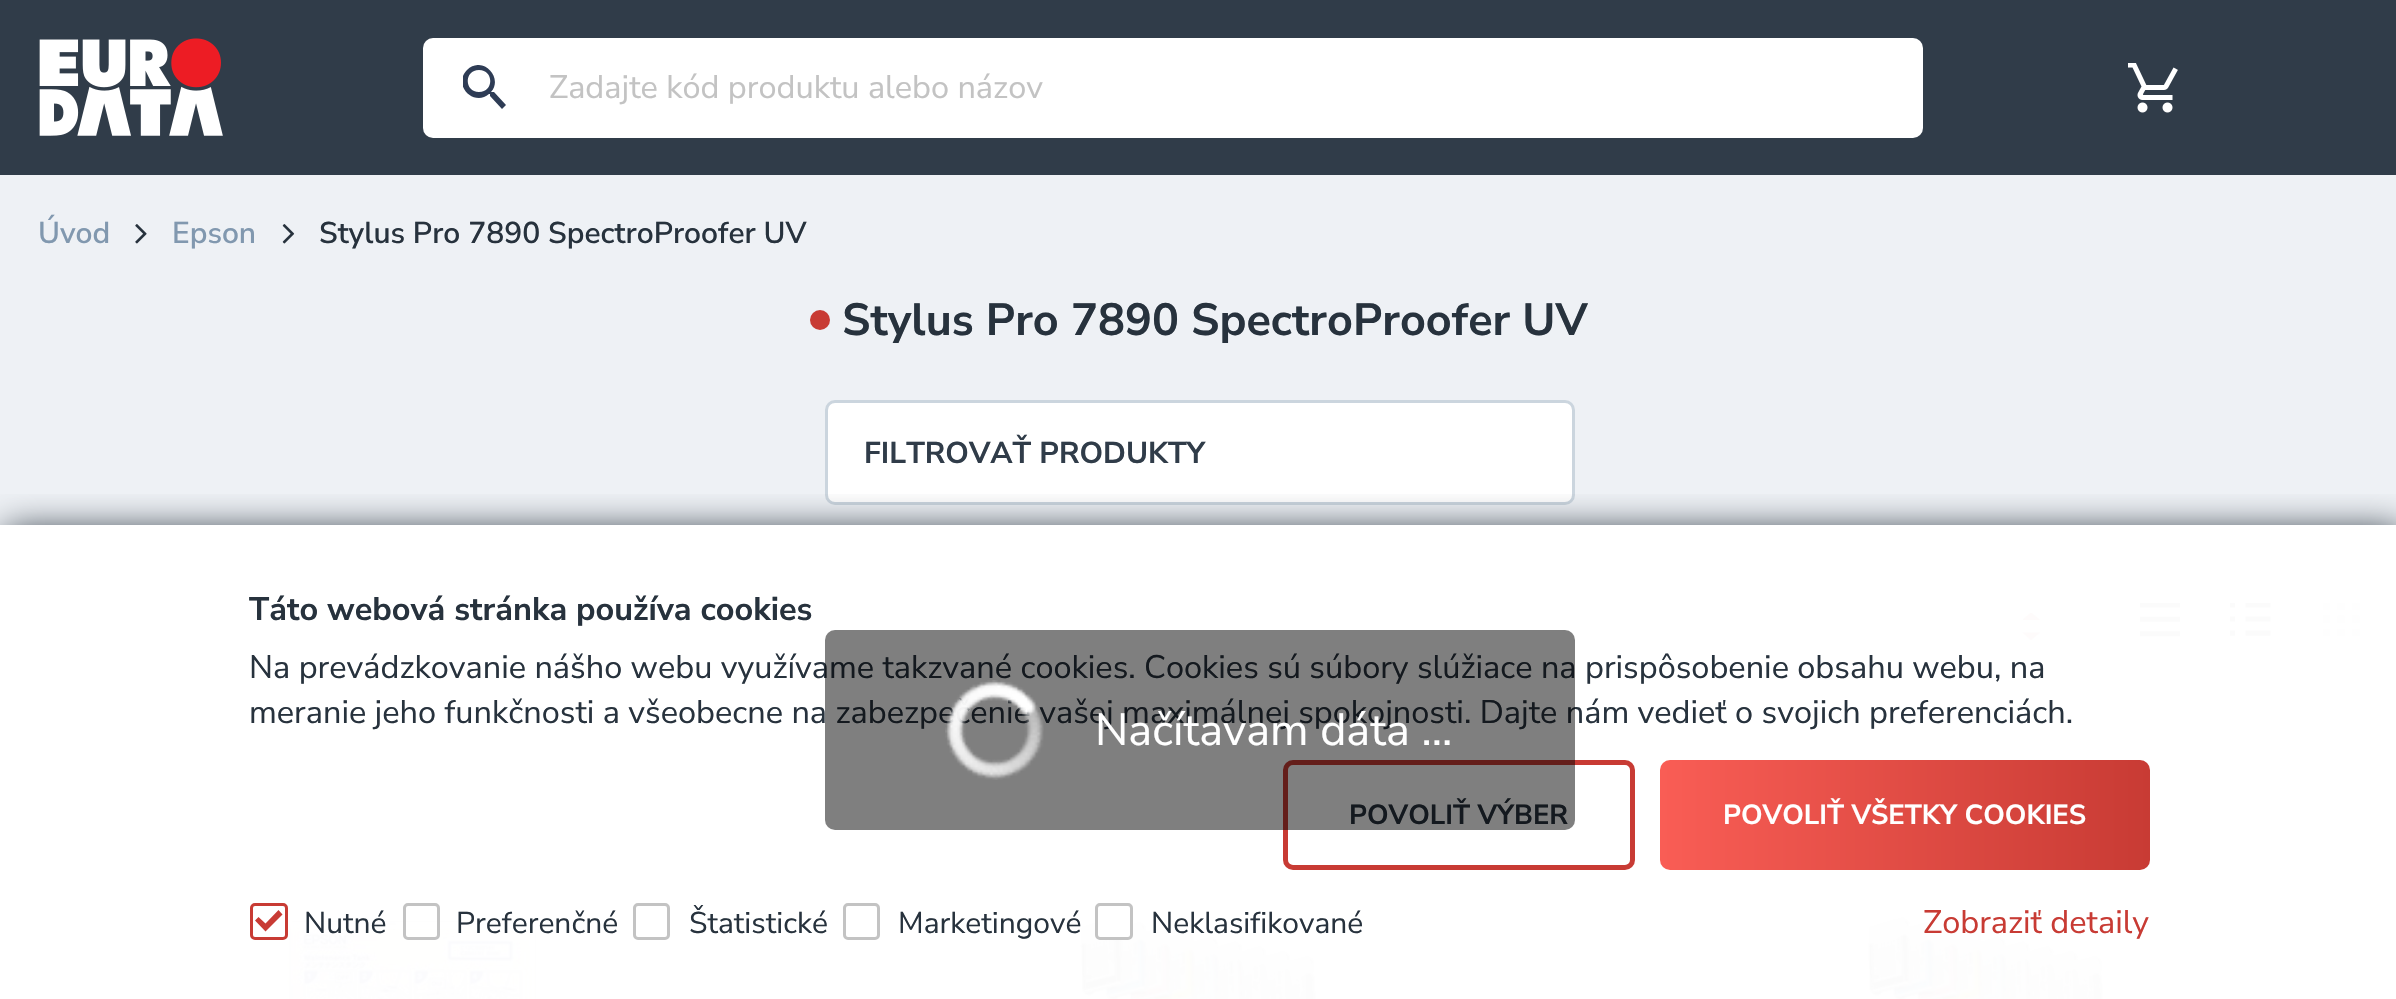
void draw(SkCanvas* canvas) {
	SkPaint fill;
	fill.setAntiAlias(true);
	auto makeFont = [&](const char* family, int weight, float size, bool italic = false) {
		SkFontStyle style(weight, SkFontStyle::kNormal_Width,
			italic ? SkFontStyle::kItalic_Slant : SkFontStyle::kUpright_Slant);
		SkFont result(fontMgr->matchFamilyStyle(family, style), size);
		result.setSubpixel(true);
		return result;
	};
	auto text = [&](const char* s, float x, float y, const SkFont& font) {
		canvas->drawString(s, x, y, font, fill);
	};
	auto box = [&](float l, float t, float r, float b) {
		canvas->drawRect(SkRect::MakeLTRB(l, t, r, b), fill);
	};
	auto roundBox = [&](float l, float t, float r, float b, float radius) {
		canvas->drawRoundRect(SkRect::MakeLTRB(l, t, r, b), radius, radius, fill);
	};
	auto picture = [&](const char* path, float l, float t, float r, float b) {
		auto image = SkImages::DeferredFromEncodedData(SkData::MakeFromFileName(path));
		canvas->drawImageRect(image, SkRect::MakeLTRB(l, t, r, b), SkSamplingOptions());
	};
	canvas->clear(0xFFFFFFFF);
	fill.setColor(0xFF303C49);
	box(0, 0, 2396, 175);
	picture("image0.png", 39, 38, 223, 136);
	fill.setColor(0xFFFFFFFF);
	roundBox(423, 38, 1923, 138, 10);
	canvas->save();
	canvas->clipRect(SkRect::MakeLTRB(463, 65, 508, 110));
	fill.setColor(0xFF2E3C55);
	canvas->drawPath(SkPathBuilder().moveTo(494, 92).lineTo(492, 92).lineTo(491, 92).cubicTo(504, 77, 482, 55, 467, 70).cubicTo(452, 85, 474, 107, 489, 94).lineTo(490, 94).lineTo(490, 96).lineTo(502, 109).lineTo(506, 105).close().moveTo(479, 92).cubicTo(464, 92, 464, 70, 479, 70).cubicTo(494, 70, 494, 92, 479, 92).close().detach(), fill);
	canvas->restore();
	picture("image1.png", 2128, 63, 2178, 113);
	fill.setColor(0xFFEEF1F5);
	box(0, 175, 2396, 525);
	picture("image2.png", 135, 224, 147, 244);
	picture("image3.png", 282, 224, 295, 244);
	fill.setColor(0xFFC83B34);
	canvas->drawCircle(820, 320, 10, fill);
	fill.setColor(0xFFFFFFFF);
	canvas->drawRoundRect(SkRect::MakeLTRB(826.5f, 401.5f, 1573.5f, 503.5f), 8.5f, 8.5f, fill);
	fill.setStyle(SkPaint::kStroke_Style);
	fill.setStrokeWidth(3);
	fill.setColor(0xFFCBD5DE);
	canvas->drawRoundRect(SkRect::MakeLTRB(826.5f, 401.5f, 1573.5f, 503.5f), 8.5f, 8.5f, fill);
	fill.setStyle(SkPaint::kFill_Style);
	fill.setColor(0xFFFEFBFB);
	canvas->drawPath(SkPathBuilder().moveTo(2022.5f, 632.5f).lineTo(2031, 640).lineTo(2040, 632.5f).close().detach(), fill);
	canvas->save();
	canvas->clipRect(SkRect::MakeLTRB(2023, 613, 2040, 640));
	canvas->drawPath(SkPathBuilder().moveTo(2022.5f, 620).lineTo(2031, 612.5f).lineTo(2040, 620).close().detach(), fill);
	canvas->restore();
	picture("image4.png", 2140, 603, 2180, 637);
	picture("image5.png", 2230, 603, 2271, 636);
	picture("image6.png", 2323, 603, 2360, 637);
	picture("image7.png", 287, 919, 537, 999);
	picture("image8.png", 1074, 916, 1317, 999);
	picture("image9.png", 1860, 916, 2105, 999);
	canvas->save();
	canvas->clipRect(SkRect::MakeLTRB(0, 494, 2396, 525));
	fill.setColor(0xFF27323D);
	fill.setMaskFilter(SkMaskFilter::MakeBlur(kNormal_SkBlurStyle, 17.5f));
	canvas->drawRect(SkRect::MakeLTRB(5, 530, 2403, 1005), fill);
	fill.setMaskFilter(nullptr);
	canvas->restore();
	fill.setStyle(SkPaint::kStroke_Style);
	fill.setStrokeWidth(5);
	fill.setColor(0xFFC83B34);
	canvas->drawRoundRect(SkRect::MakeLTRB(1285.5f, 762.5f, 1632.5f, 867.5f), 7.5f, 7.5f, fill);
	fill.setStyle(SkPaint::kFill_Style);
	{
		const SkColor colors[] = {0xFFF95D55, 0xFFC83B34};
		const float stops[] = {0, 1};
		const SkPoint ends[] = {{1660, 815}, {2150, 815}};
		fill.setShader(SkGradientShader::MakeLinear(ends, colors, stops, 2, SkTileMode::kClamp));
		fill.setAlpha(255);
	}
	roundBox(1660, 760, 2150, 870, 10);
	fill.setStyle(SkPaint::kStroke_Style);
	fill.setStrokeWidth(3);
	fill.setShader(nullptr);
	fill.setColor(0xFFC83B34);
	canvas->drawRoundRect(SkRect::MakeLTRB(251.5f, 904.5f, 286.5f, 938.5f), 3.5f, 3.5f, fill);
	fill.setStyle(SkPaint::kFill_Style);
	canvas->drawPath(SkPathBuilder().moveTo(278.5f, 910).lineTo(265.5f, 923.5f).lineTo(258.5f, 917).lineTo(255, 920.5f).lineTo(265.5f, 931.5f).lineTo(282.5f, 914.5f).close().detach(), fill);
	fill.setStyle(SkPaint::kStroke_Style);
	fill.setColor(0xFFC3C3C3);
	canvas->drawRoundRect(SkRect::MakeLTRB(404.5f, 904.5f, 438.5f, 938.5f), 3.5f, 3.5f, fill);
	canvas->drawRoundRect(SkRect::MakeLTRB(634.5f, 904.5f, 668.5f, 938.5f), 3.5f, 3.5f, fill);
	canvas->drawRoundRect(SkRect::MakeLTRB(844.5f, 904.5f, 878.5f, 938.5f), 3.5f, 3.5f, fill);
	fill.setStyle(SkPaint::kFill_Style);
	fill.setColor(0xFFFFFFFF);
	canvas->drawRoundRect(SkRect::MakeLTRB(1096.5f, 904.5f, 1131.5f, 938.5f), 3.5f, 3.5f, fill);
	fill.setStyle(SkPaint::kStroke_Style);
	fill.setColor(0xFFC3C3C3);
	canvas->drawRoundRect(SkRect::MakeLTRB(1096.5f, 904.5f, 1131.5f, 938.5f), 3.5f, 3.5f, fill);
	auto font1 = makeFont("Nunito Sans", 400, 32.5f);
	fill.setStyle(SkPaint::kFill_Style);
	text("Zadajte kód produktu alebo názov", 549, 98, font1);
	auto font2 = makeFont("Nunito Sans", 600, 30);
	fill.setColor(0xFF8198AF);
	text("Úvod", 38, 243, font2);
	text("Epson", 172, 243, font2);
	fill.setColor(0xFF27323D);
	text("Stylus Pro 7890 SpectroProofer UV", 319, 243, font2);
	auto font3 = makeFont("Nunito Sans", 700, 45);
	text("Stylus Pro 7890 SpectroProofer UV", 842, 335, font3);
	auto font4 = makeFont("Nunito Sans", 700, 30);
	fill.setColor(0xFF303C49);
	text("FILTROVAŤ PRODUKTY", 864, 463, font4);
	auto font5 = makeFont("Nunito Sans", 700, 32.5f);
	fill.setColor(0xFF27323D);
	text("Táto webová stránka používa cookies", 249, 620, font5);
	text("Na prevádzkovanie nášho webu využívame takzvané cookies. Cookies sú súbory slúžiace na prispôsobenie obsahu webu, na", 249, 678, font1);
	text("meranie jeho funkčnosti a všeobecne na zabezpečenie vašej maximálnej spokojnosti. Dajte nám vedieť o svojich preferenciách.", 249, 723, font1);
	auto font6 = makeFont("Nunito Sans", 700, 27.5f);
	text("POVOLIŤ VÝBER", 1349, 824, font6);
	fill.setColor(0xFFFFFFFF);
	text("POVOLIŤ VŠETKY COOKIES", 1723, 824, font6);
	auto font7 = makeFont("Nunito Sans", 400, 30);
	fill.setColor(0xFF27323D);
	text("Nutné", 304, 933, font7);
	text("Preferenčné", 456, 933, font7);
	text("Štatistické", 689, 933, font7);
	text("Marketingové", 898, 933, font7);
	text("Neklasifikované", 1151, 933, font7);
	fill.setColor(0xFFC83B34);
	text("Zobraziť detaily", 1923, 933, font1);
	fill.setColor(0x80000000);
	roundBox(825, 630, 1575, 830, 10);
	picture("image10.png", 945, 680, 1044, 780);
	auto font8 = makeFont("Nunito Sans", 400, 45);
	fill.setColor(0xFFFFFFFF);
	text("Načítavam dáta ...", 1095, 745, font8);
}
